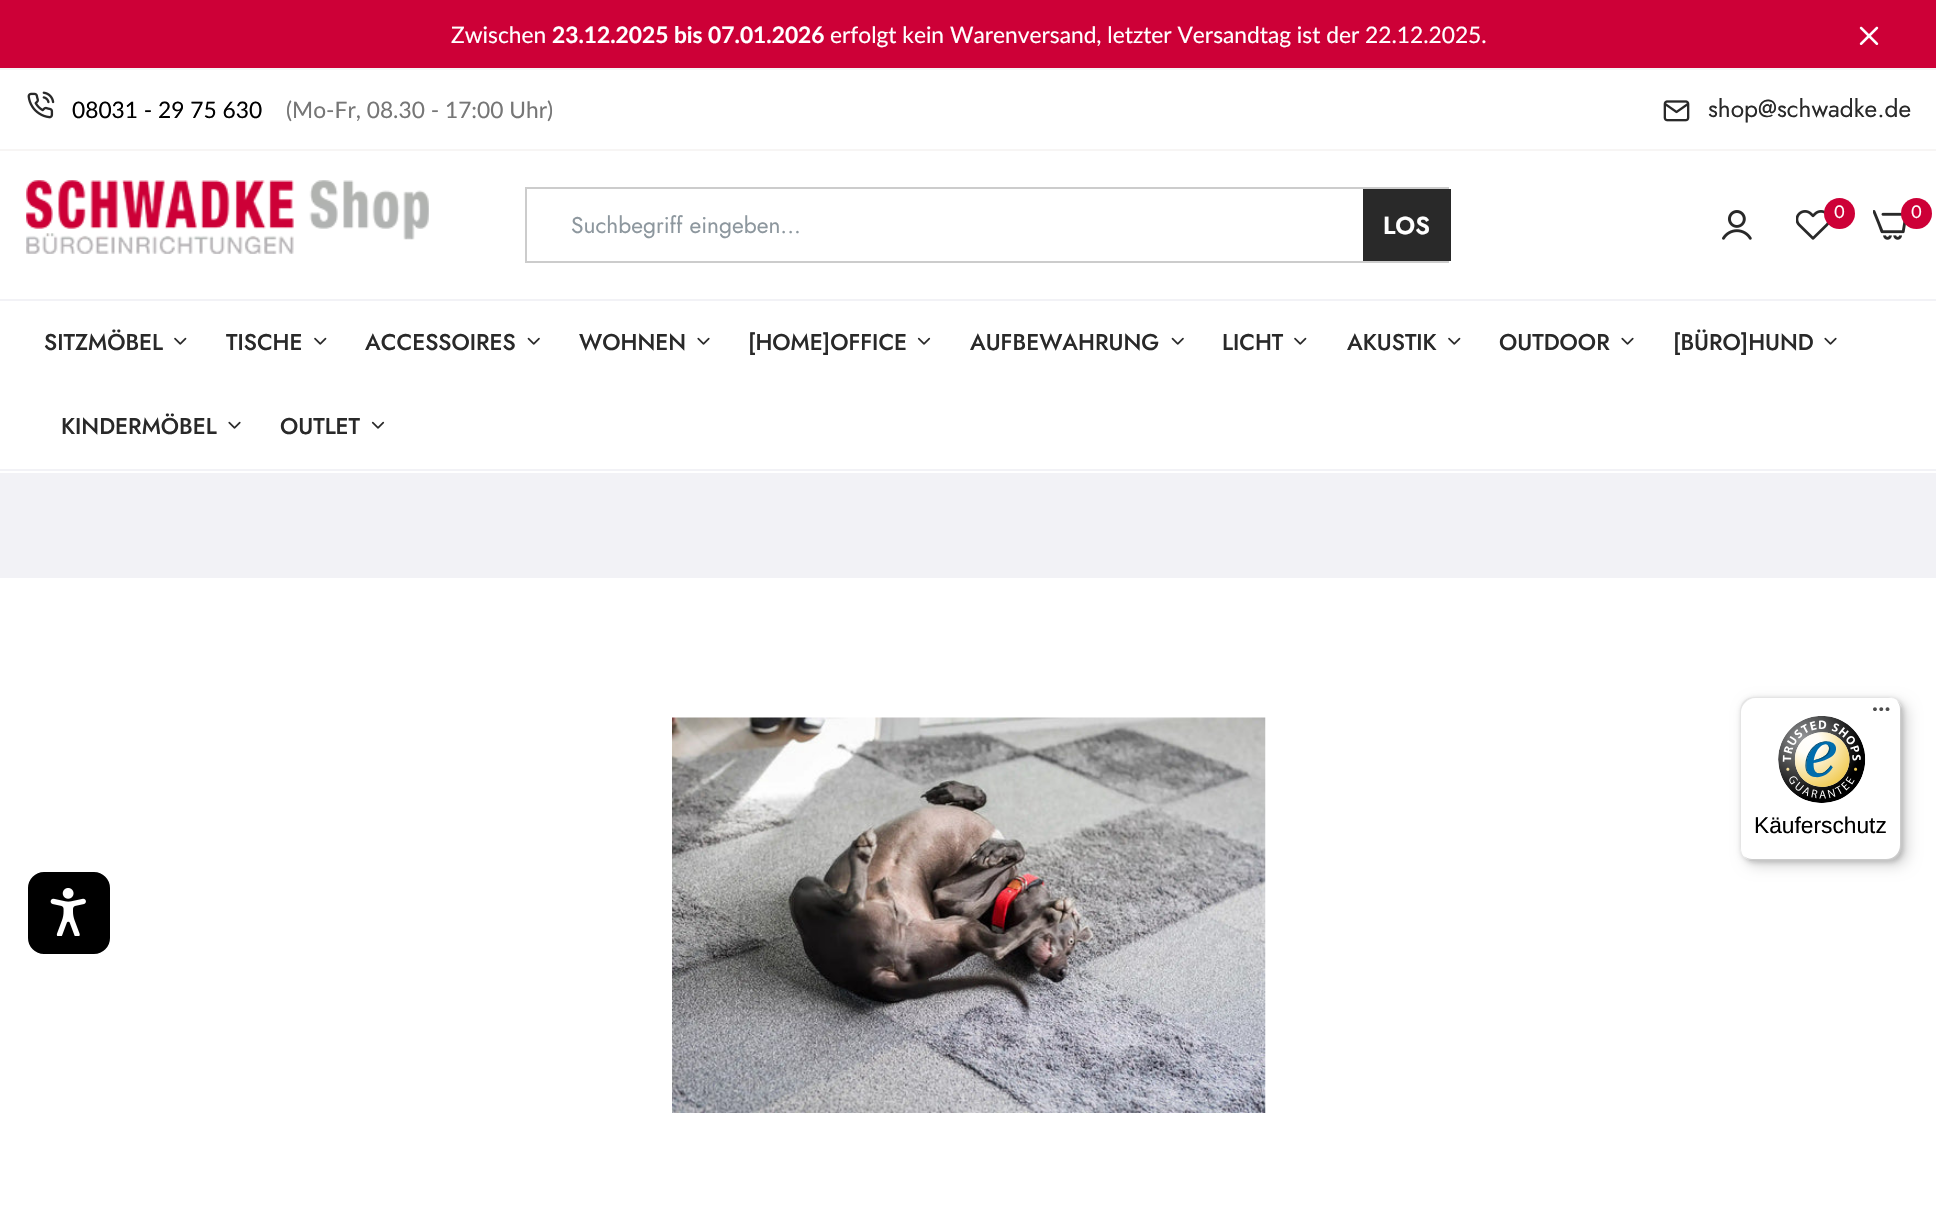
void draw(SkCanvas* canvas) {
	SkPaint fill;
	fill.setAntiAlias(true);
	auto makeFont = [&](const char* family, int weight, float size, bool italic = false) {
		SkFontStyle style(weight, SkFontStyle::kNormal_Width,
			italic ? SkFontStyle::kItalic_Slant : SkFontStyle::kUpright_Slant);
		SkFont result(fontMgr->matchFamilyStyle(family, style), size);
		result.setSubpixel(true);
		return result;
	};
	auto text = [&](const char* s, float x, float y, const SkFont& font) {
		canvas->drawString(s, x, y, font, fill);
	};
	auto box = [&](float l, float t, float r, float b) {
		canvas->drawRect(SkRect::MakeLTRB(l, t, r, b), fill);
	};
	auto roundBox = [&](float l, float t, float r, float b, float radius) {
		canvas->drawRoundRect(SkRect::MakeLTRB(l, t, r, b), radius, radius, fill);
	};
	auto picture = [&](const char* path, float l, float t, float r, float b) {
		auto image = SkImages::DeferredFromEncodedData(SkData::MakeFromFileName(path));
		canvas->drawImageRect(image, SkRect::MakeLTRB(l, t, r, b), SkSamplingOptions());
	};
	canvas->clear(0xFFFFFFFF);
	fill.setColor(0xFFCD0037);
	box(0, 0, 1936, 68);
	fill.setColor(0xFFF5F5F5);
	box(0, 68, 1936, 70);
	picture("image0.png", 1859, 26, 1879, 45);
	fill.setColor(0xFFF7F5F4);
	box(0, 149, 1936, 151);
	picture("image1.png", 27, 91, 55, 119);
	picture("image2.png", 1663, 100, 1690, 122);
	picture("image3.png", 26, 180, 429, 254);
	picture("image4.png", 1722, 210, 1752, 240);
	picture("image5.png", 1796, 210, 1830, 240);
	fill.setColor(0xFFCD0037);
	canvas->drawCircle(1839.5f, 213.5f, 15.5f, fill);
	picture("image6.png", 1873, 210, 1906, 240);
	canvas->drawCircle(1916.5f, 213.5f, 15.5f, fill);
	fill.setStyle(SkPaint::kStroke_Style);
	fill.setStrokeWidth(2);
	fill.setColor(0xFFCCCCCC);
	canvas->drawRect(SkRect::MakeLTRB(526, 188, 1448, 262), fill);
	fill.setStyle(SkPaint::kFill_Style);
	fill.setColor(0xFF292929);
	box(1363, 189, 1451, 261);
	fill.setColor(0xFFF2F2F6);
	box(0, 299, 1936, 301);
	box(0, 469, 1936, 471);
	picture("image7.png", 174, 337, 187, 345);
	picture("image7.png", 314, 337, 327, 345);
	picture("image8.png", 527, 337, 540, 345);
	picture("image9.png", 697, 337, 710, 345);
	picture("image10.png", 917, 337, 931, 345);
	picture("image8.png", 1171, 337, 1184, 345);
	picture("image7.png", 1294, 337, 1307, 345);
	picture("image7.png", 1448, 337, 1461, 345);
	picture("image9.png", 1621, 337, 1634, 345);
	picture("image9.png", 1824, 337, 1837, 345);
	picture("image9.png", 228, 421, 241, 429);
	picture("image10.png", 371, 421, 385, 429);
	box(0, 473, 1936, 578);
	picture("image11.png", 672, 717, 1266, 1113);
	fill.setColor(0x26000000);
	fill.setMaskFilter(SkMaskFilter::MakeBlur(kNormal_SkBlurStyle, 7));
	canvas->drawRoundRect(SkRect::MakeLTRB(1745, 702, 1908, 866), 14, 14, fill);
	fill.setMaskFilter(nullptr);
	fill.setMaskFilter(SkMaskFilter::MakeBlur(kNormal_SkBlurStyle, 2));
	canvas->drawRoundRect(SkRect::MakeLTRB(1741, 698, 1904, 863), 14, 14, fill);
	fill.setMaskFilter(nullptr);
	fill.setColor(0xFFFFFFFF);
	roundBox(1740, 697, 1902, 861, 14);
	fill.setColor(0xFFE5E5E5);
	canvas->drawPath(SkPathBuilder().moveTo(1755, 698).lineTo(1890, 698).cubicTo(1892, 698, 1894, 698, 1895, 699).cubicTo(1893, 698, 1891, 697, 1888, 697).lineTo(1754, 697).cubicTo(1746, 697, 1740, 703, 1740, 711).lineTo(1740, 847).cubicTo(1740, 850, 1741, 853, 1743, 856).cubicTo(1742, 854, 1741, 851, 1741, 849).lineTo(1741, 712).cubicTo(1741, 705, 1748, 698, 1755, 698).close().detach(), fill);
	fill.setColor(0x33000000);
	canvas->drawPath(SkPathBuilder().moveTo(1744, 856).cubicTo(1746, 859, 1750, 861, 1754, 861).lineTo(1888, 861).cubicTo(1896, 861, 1902, 855, 1902, 847).lineTo(1902, 711).cubicTo(1902, 707, 1900, 703, 1897, 701).cubicTo(1899, 703, 1900, 706, 1900, 709).lineTo(1900, 845).cubicTo(1900, 853, 1894, 859, 1886, 859).lineTo(1752, 859).cubicTo(1749, 859, 1746, 858, 1744, 856).close().detach(), fill);
	fill.setColor(0x33323232);
	canvas->drawPath(SkPathBuilder().moveTo(1746, 859).cubicTo(1748, 860, 1751, 861, 1754, 861).lineTo(1888, 861).cubicTo(1896, 861, 1902, 855, 1902, 847).lineTo(1902, 711).cubicTo(1902, 708, 1901, 705, 1900, 703).cubicTo(1901, 705, 1901, 707, 1901, 709).lineTo(1901, 846).cubicTo(1901, 854, 1895, 860, 1887, 860).lineTo(1752, 860).cubicTo(1750, 860, 1748, 860, 1746, 859).close().detach(), fill);
	fill.setColor(0x4DFFFFFF);
	canvas->drawPath(SkPathBuilder().moveTo(1745, 857).cubicTo(1747, 860, 1750, 861, 1754, 861).lineTo(1888, 861).cubicTo(1896, 861, 1902, 855, 1902, 847).lineTo(1902, 711).cubicTo(1902, 707, 1901, 704, 1898, 702).cubicTo(1900, 704, 1901, 707, 1901, 710).lineTo(1901, 846).cubicTo(1901, 854, 1895, 860, 1887, 860).lineTo(1753, 860).cubicTo(1750, 860, 1747, 859, 1745, 857).close().detach(), fill);
	picture("image12.png", 1873, 707, 1890, 711);
	picture("image13.png", 1778, 716, 1866, 803);
	fill.setColor(0xFF000000);
	canvas->drawRoundRect(SkRect::MakeLTRB(27, 871, 111, 955), 17, 17, fill);
	fill.setStyle(SkPaint::kStroke_Style);
	fill.setColor(0xFFFFFFFF);
	canvas->drawRoundRect(SkRect::MakeLTRB(27, 871, 111, 955), 17, 17, fill);
	picture("image14.png", 50, 888, 86, 936);
	auto font1 = makeFont("Lato", 400, 22.75f);
	fill.setStyle(SkPaint::kFill_Style);
	text("Zwischen", 451, 43, font1);
	auto font2 = makeFont("Lato", 700, 22.75f);
	text("23.12.2025 bis 07.01.2026", 552, 43, font2);
	text("erfolgt kein Warenversand, letzter Versandtag ist der 22.12.2025.", 830, 43, font1);
	fill.setColor(0xFF000000);
	text("08031 - 29 75 630", 72, 118, font1);
	fill.setColor(0xFF767676);
	text("(Mo-Fr, 08.30 - 17:00 Uhr)", 286, 118, font1);
	auto font3 = makeFont("Jost", 400, 24.5f);
	fill.setColor(0xFF292929);
	text("shop@schwadke.de", 1708, 117, font3);
	auto font4 = makeFont("Jost", 400, 18);
	fill.setColor(0xFFFFFFFF);
	text("0", 1834, 218, font4);
	text("0", 1911, 218, font4);
	auto font5 = makeFont("Jost", 400, 22.75f);
	fill.setColor(0xFF8D979E);
	text("Suchbegriff eingeben...", 571, 233, font5);
	auto font6 = makeFont("Jost", 600, 24.5f);
	fill.setColor(0xFFFFFFFF);
	text("LOS", 1383, 234, font6);
	auto font7 = makeFont("Jost", 500, 22.75f);
	fill.setColor(0xFF292929);
	text("SITZMÖBEL", 44, 350, font7);
	text("TISCHE", 226, 350, font7);
	text("ACCESSOIRES", 365, 350, font7);
	text("WOHNEN", 579, 350, font7);
	text("[HOME]OFFICE", 748, 350, font7);
	text("AUFBEWAHRUNG", 970, 350, font7);
	text("LICHT", 1222, 350, font7);
	text("AKUSTIK", 1347, 350, font7);
	text("OUTDOOR", 1499, 350, font7);
	text("[BÜRO]HUND", 1673, 350, font7);
	text("KINDERMÖBEL", 61, 434, font7);
	text("OUTLET", 280, 434, font7);
	auto font8 = makeFont("Liberation Sans", 400, 22.75f);
	fill.setColor(0xFF000000);
	text("Käuferschutz", 1754, 833, font8);
}
